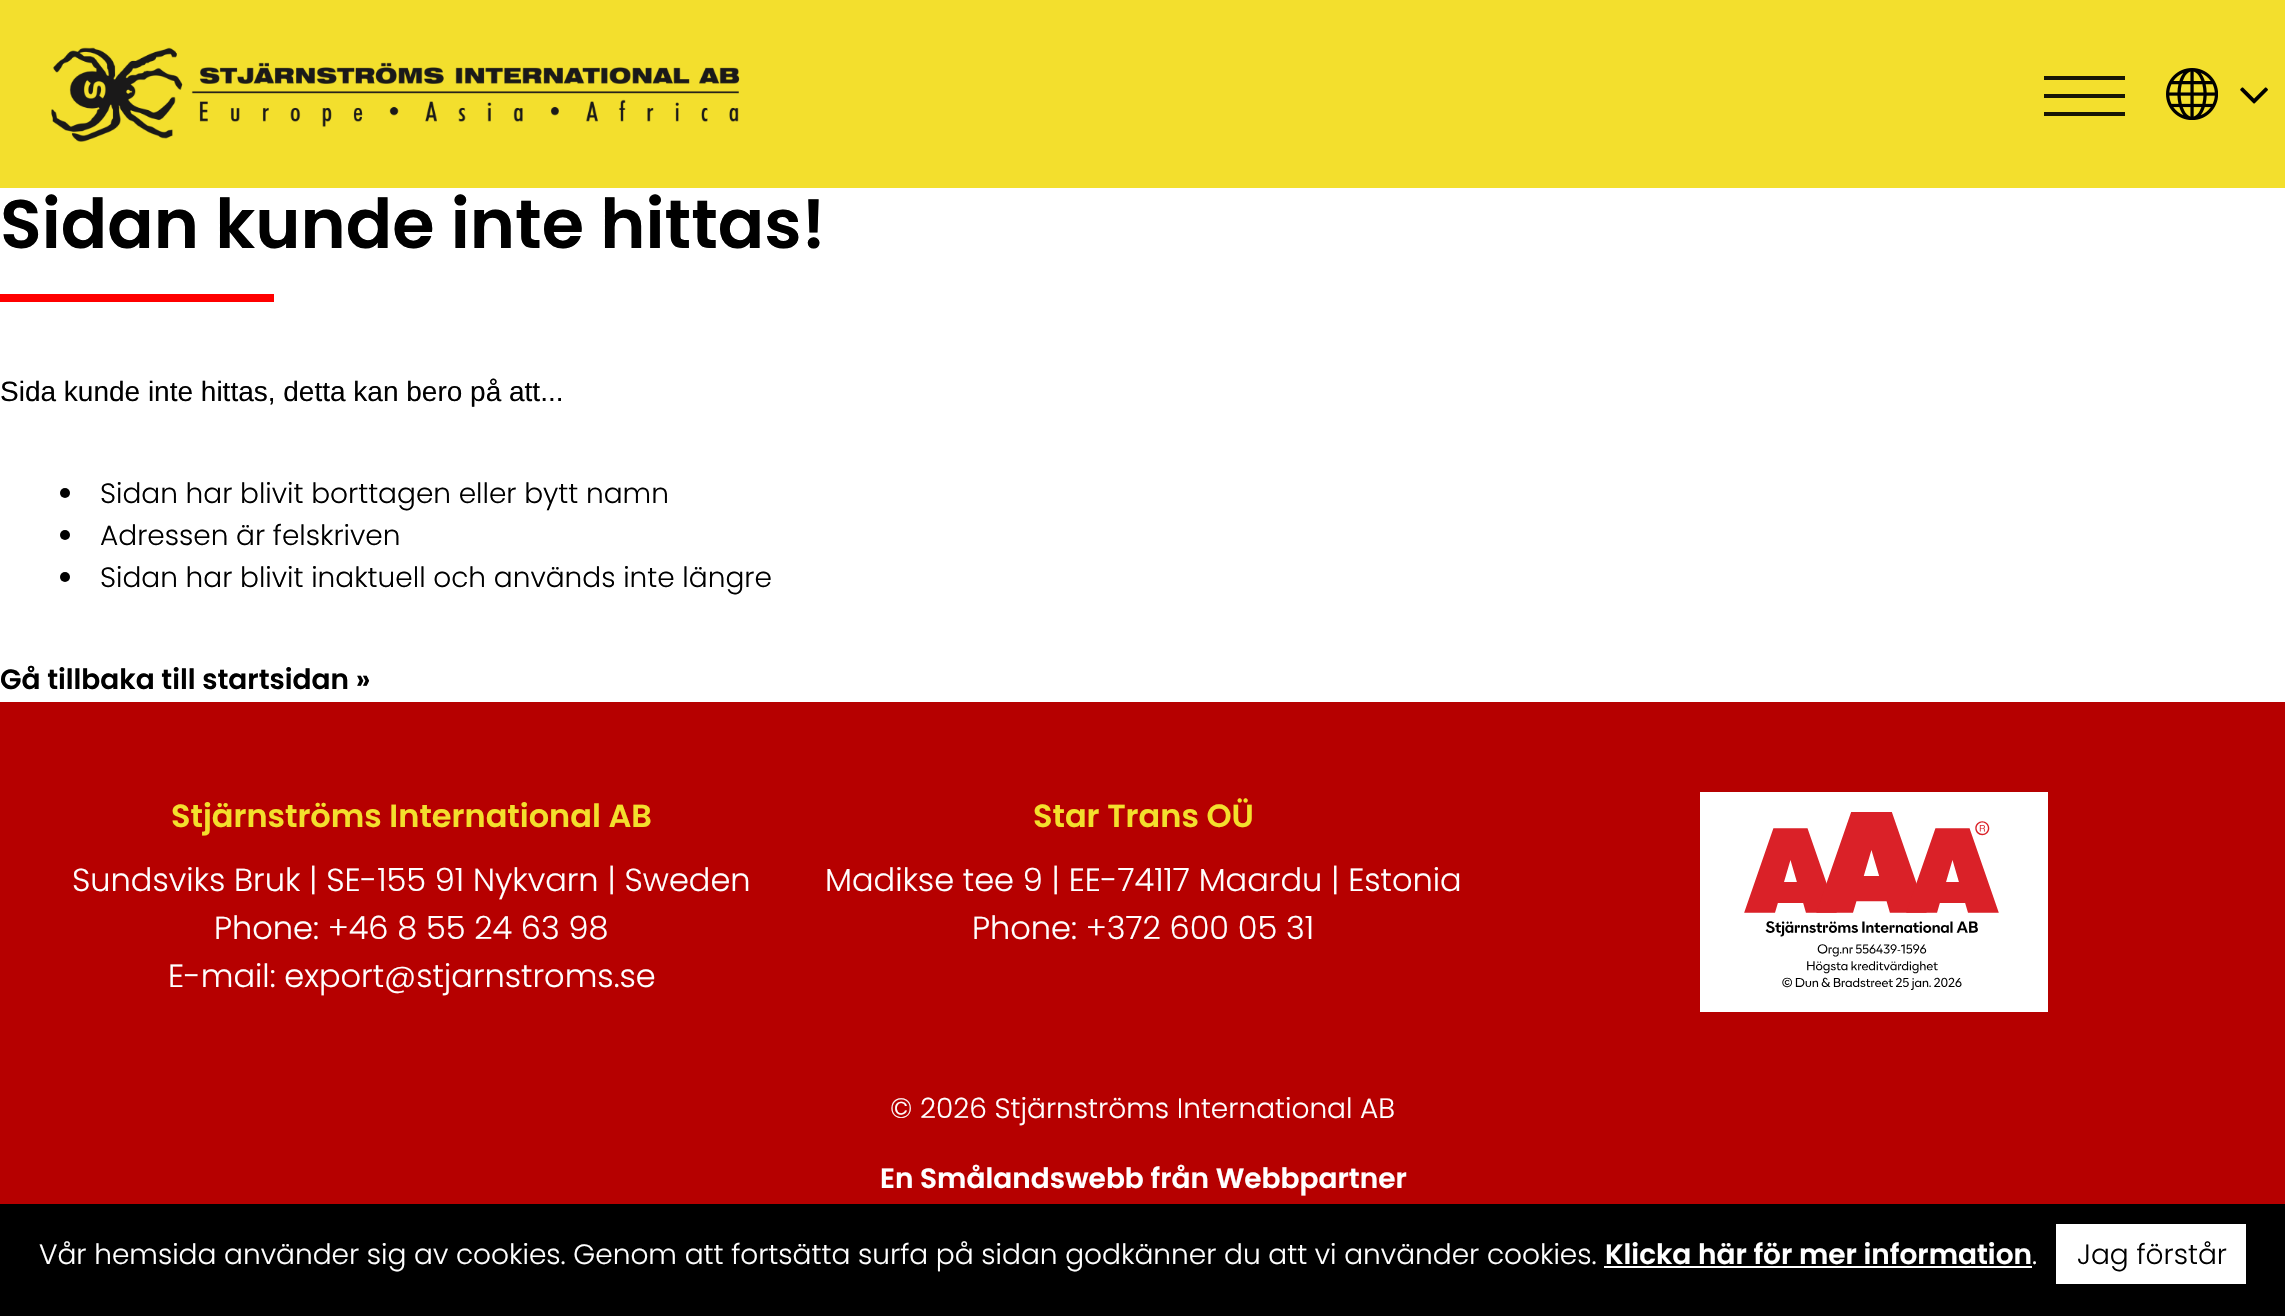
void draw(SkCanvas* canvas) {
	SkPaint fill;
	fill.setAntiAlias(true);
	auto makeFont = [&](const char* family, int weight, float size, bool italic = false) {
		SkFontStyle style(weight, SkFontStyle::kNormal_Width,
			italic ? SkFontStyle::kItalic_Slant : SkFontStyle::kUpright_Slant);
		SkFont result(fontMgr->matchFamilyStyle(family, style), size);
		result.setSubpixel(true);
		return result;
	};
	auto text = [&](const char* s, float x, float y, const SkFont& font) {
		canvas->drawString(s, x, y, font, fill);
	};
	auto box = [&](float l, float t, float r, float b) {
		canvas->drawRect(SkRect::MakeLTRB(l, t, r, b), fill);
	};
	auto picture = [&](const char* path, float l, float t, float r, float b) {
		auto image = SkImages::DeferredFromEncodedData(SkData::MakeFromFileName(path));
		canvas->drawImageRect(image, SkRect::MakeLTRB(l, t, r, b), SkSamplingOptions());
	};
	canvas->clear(0xFFB60000);
	fill.setColor(0xFFF3DF2D);
	box(0, 0, 2285, 188);
	picture("image0.png", 51, 47, 740, 142);
	fill.setColor(0xFF181605);
	box(2044, 76, 2125, 80);
	box(2044, 94, 2125, 98);
	box(2044, 112, 2125, 116);
	picture("image1.png", 2166, 68, 2218, 120);
	picture("image2.png", 2240, 87, 2268, 104);
	fill.setColor(0xFFFFFFFF);
	box(0, 188, 2285, 702);
	fill.setColor(0xFFFF0000);
	box(0, 294, 274, 302);
	fill.setColor(0xFF000000);
	canvas->drawCircle(65, 493, 5, fill);
	canvas->drawCircle(65, 535, 5, fill);
	canvas->drawCircle(65, 577, 5, fill);
	fill.setColor(0xFFFFFFFF);
	box(1700, 792, 2048, 1012);
	picture("image3.png", 1744, 812, 1999, 990);
	fill.setColor(0xFF000000);
	box(0, 1204, 2285, 1316);
	fill.setColor(0xFFFFFFFF);
	box(1604, 1266, 2032, 1268);
	box(2056, 1224, 2246, 1284);
	auto font1 = makeFont("Poppins", 600, 68.5f);
	fill.setColor(0xFF000000);
	text("Sidan kunde inte hittas!", 0, 248, font1);
	auto font2 = makeFont("Liberation Sans", 400, 28);
	text("Sida kunde inte hittas, detta kan bero på att...", 0, 401, font2);
	auto font3 = makeFont("Poppins", 300, 28);
	text("Sidan har blivit borttagen eller bytt namn", 100, 503, font3);
	text("Adressen är felskriven", 100, 545, font3);
	text("Sidan har blivit inaktuell och används inte längre", 100, 587, font3);
	auto font4 = makeFont("Poppins", 600, 28);
	text("Gå tillbaka till startsidan »", 0, 689, font4);
	auto font5 = makeFont("Poppins", 600, 32);
	fill.setColor(0xFFF3DF2D);
	text("Stjärnströms International AB", 171, 827, font5);
	auto font6 = makeFont("Poppins", 300, 32);
	fill.setColor(0xFFFFFFFF);
	text("Sundsviks Bruk | SE-155 91 Nykvarn | Sweden", 72, 891, font6);
	text("Phone: +46 8 55 24 63 98", 214, 939, font6);
	text("E-mail: export@stjarnstroms.se", 168, 987, font6);
	fill.setColor(0xFFF3DF2D);
	text("Star Trans OÜ", 1033, 827, font5);
	fill.setColor(0xFFFFFFFF);
	text("Madikse tee 9 | EE-74117 Maardu | Estonia", 825, 891, font6);
	text("Phone: +372 600 05 31", 972, 939, font6);
	text("© 2026 Stjärnströms International AB", 890, 1118, font3);
	text("En Smålandswebb från Webbpartner", 880, 1188, font4);
	text("Vår hemsida använder sig av cookies. Genom att fortsätta surfa på sidan godkänner du att vi använder cookies.", 39, 1264, font3);
	text("Klicka här för mer information", 1605, 1264, font4);
	text(".", 2032, 1264, font3);
	fill.setColor(0xFF000000);
	text("Jag förstår", 2077, 1264, font3);
}
